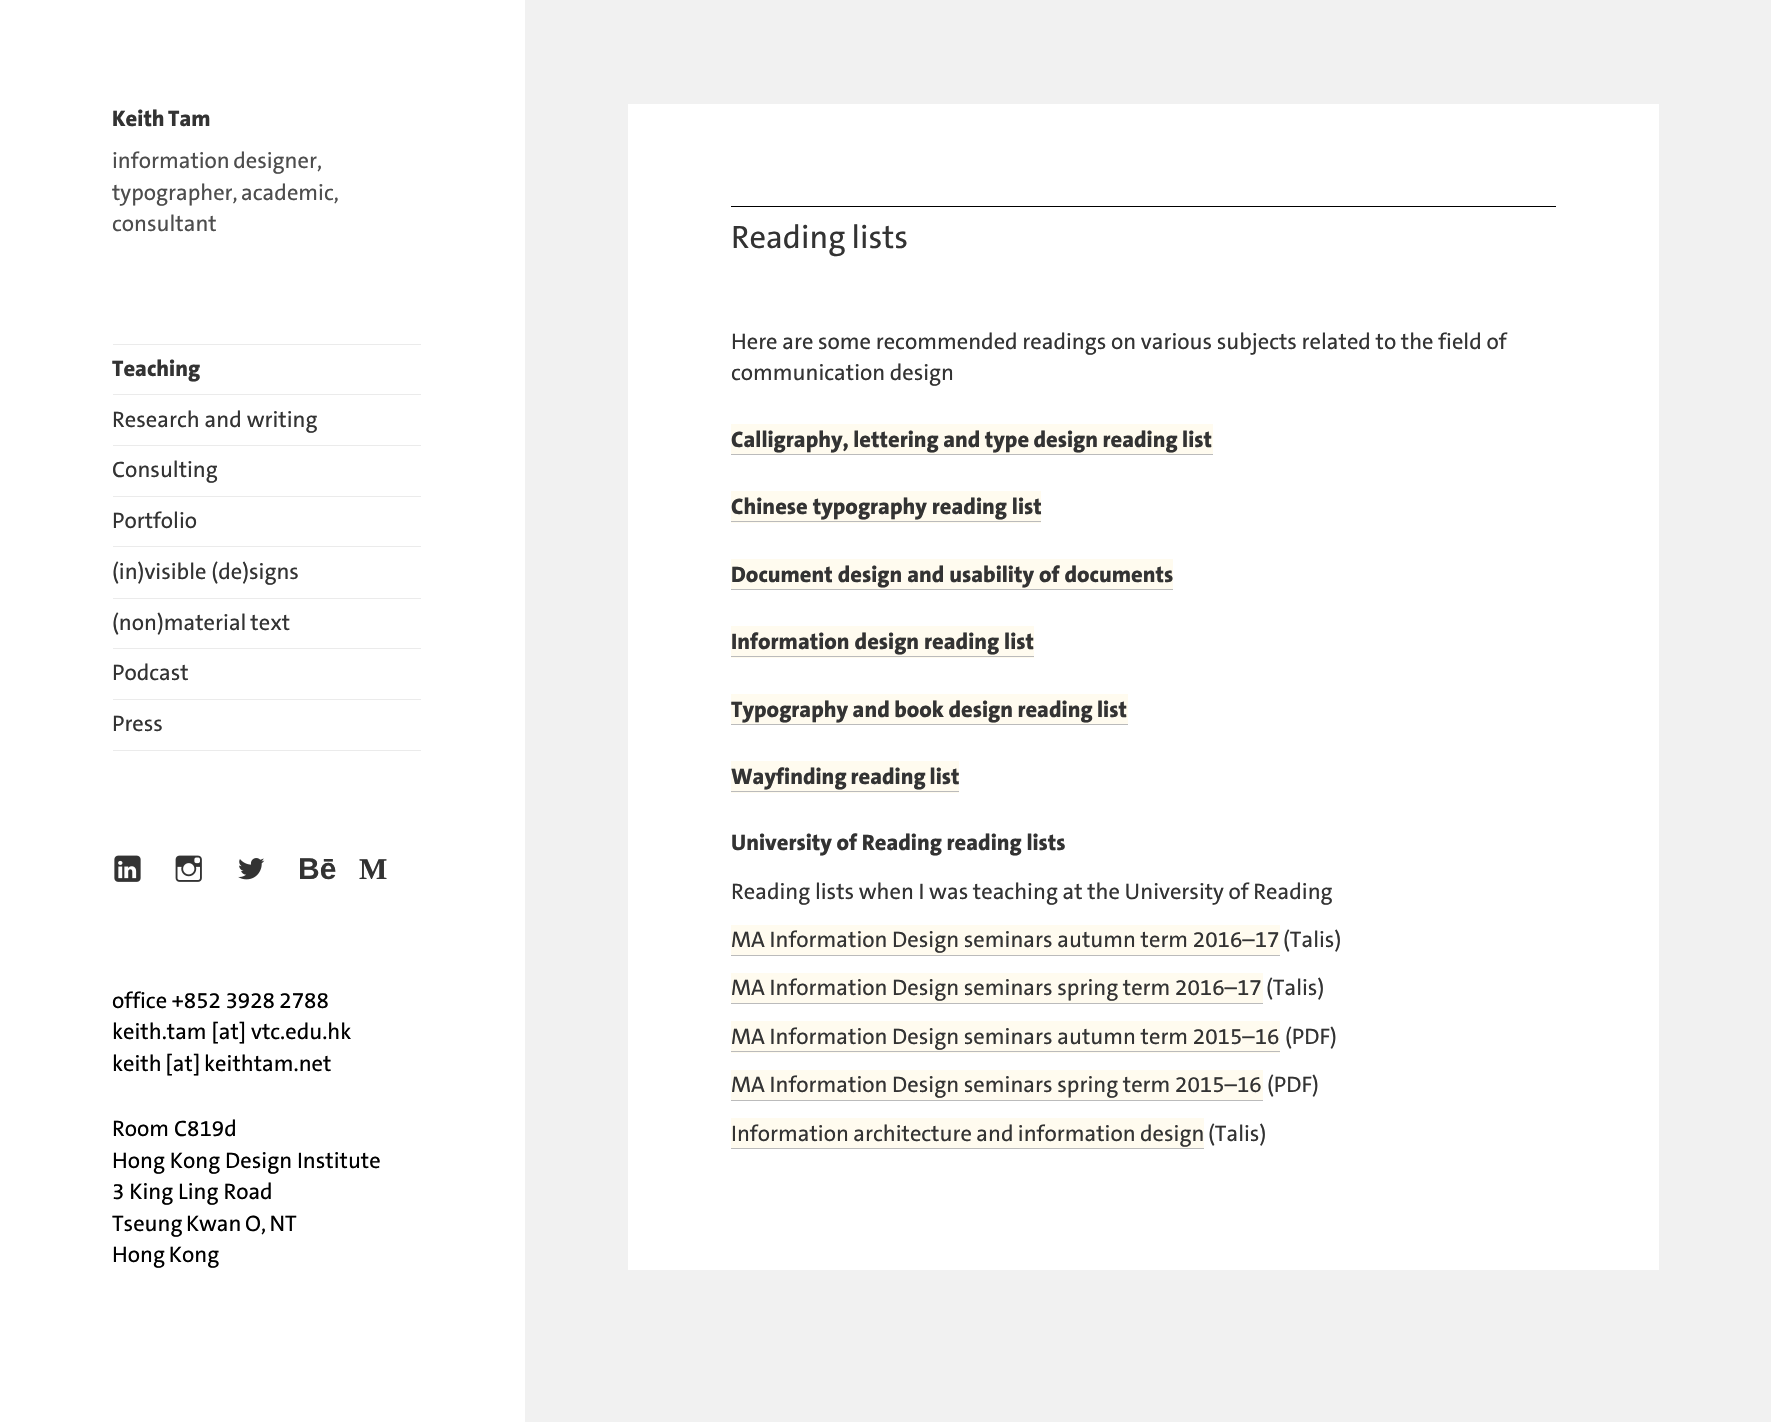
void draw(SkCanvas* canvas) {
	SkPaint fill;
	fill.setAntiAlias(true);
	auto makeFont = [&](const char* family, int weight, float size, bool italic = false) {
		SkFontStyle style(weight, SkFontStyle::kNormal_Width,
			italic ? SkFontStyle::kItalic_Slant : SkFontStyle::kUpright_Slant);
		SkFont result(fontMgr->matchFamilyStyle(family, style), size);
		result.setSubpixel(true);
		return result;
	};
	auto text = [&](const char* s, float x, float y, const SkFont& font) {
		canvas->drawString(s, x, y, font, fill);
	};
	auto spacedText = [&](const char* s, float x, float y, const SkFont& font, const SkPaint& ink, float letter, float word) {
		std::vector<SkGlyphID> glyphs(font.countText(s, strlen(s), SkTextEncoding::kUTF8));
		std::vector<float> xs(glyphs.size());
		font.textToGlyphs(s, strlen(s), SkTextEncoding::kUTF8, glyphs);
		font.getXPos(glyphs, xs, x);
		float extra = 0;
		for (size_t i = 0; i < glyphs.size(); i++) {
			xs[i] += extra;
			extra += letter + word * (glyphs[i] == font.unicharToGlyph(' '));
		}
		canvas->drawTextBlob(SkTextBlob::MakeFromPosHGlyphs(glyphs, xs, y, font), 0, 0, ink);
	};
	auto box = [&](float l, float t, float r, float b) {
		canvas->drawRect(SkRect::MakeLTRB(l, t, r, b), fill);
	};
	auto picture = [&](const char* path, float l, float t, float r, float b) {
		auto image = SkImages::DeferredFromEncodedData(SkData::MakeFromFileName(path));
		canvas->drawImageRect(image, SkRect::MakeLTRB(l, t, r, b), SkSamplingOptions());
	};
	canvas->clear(0xFFF1F1F1);
	fill.setColor(0xFFFFFFFF);
	box(0, 0, 525, 1422);
	fill.setColor(0xFFEBEBEB);
	box(113, 344, 421, 345);
	box(113, 750, 421, 751);
	box(113, 394, 421, 395);
	box(113, 445, 421, 446);
	box(113, 496, 421, 497);
	box(113, 546, 421, 547);
	box(113, 598, 421, 599);
	box(113, 648, 421, 649);
	box(113, 699, 421, 700);
	picture("image0.png", 114, 855, 141, 882);
	picture("image1.png", 175, 855, 202, 882);
	picture("image2.png", 238, 858, 265, 880);
	fill.setColor(0xFFFFFFFF);
	box(628, 104, 1659, 1270);
	fill.setColor(0xFF000000);
	box(731, 206, 1556, 207);
	fill.setColor(0xFFFFFBEF);
	box(731, 424, 1213, 454);
	fill.setColor(0xFFBBBBBB);
	box(731, 454, 1213, 455);
	fill.setColor(0xFFFFFBEF);
	box(731, 491, 1041, 523);
	fill.setColor(0xFFBBBBBB);
	box(731, 521, 1041, 522);
	fill.setColor(0xFFFFFBEF);
	box(731, 559, 1173, 589);
	fill.setColor(0xFFBBBBBB);
	box(731, 589, 1173, 590);
	fill.setColor(0xFFFFFBEF);
	box(731, 626, 1034, 658);
	fill.setColor(0xFFBBBBBB);
	box(731, 656, 1034, 657);
	fill.setColor(0xFFFFFBEF);
	box(731, 694, 1128, 724);
	fill.setColor(0xFFBBBBBB);
	box(731, 724, 1128, 725);
	fill.setColor(0xFFFFFBEF);
	box(731, 761, 959, 793);
	fill.setColor(0xFFBBBBBB);
	box(731, 791, 959, 792);
	fill.setColor(0xFFFFFBEF);
	box(731, 925, 1280, 955);
	fill.setColor(0xFFBBBBBB);
	box(731, 955, 1280, 956);
	fill.setColor(0xFFFFFBEF);
	box(731, 973, 1263, 1003);
	fill.setColor(0xFFBBBBBB);
	box(731, 1003, 1263, 1004);
	fill.setColor(0xFFFFFBEF);
	box(731, 1021, 1280, 1053);
	fill.setColor(0xFFBBBBBB);
	box(731, 1051, 1280, 1052);
	fill.setColor(0xFFFFFBEF);
	box(731, 1070, 1263, 1100);
	fill.setColor(0xFFBBBBBB);
	box(731, 1100, 1263, 1101);
	fill.setColor(0xFFFFFBEF);
	box(731, 1118, 1204, 1148);
	fill.setColor(0xFFBBBBBB);
	box(731, 1148, 1204, 1149);
	auto font1 = makeFont("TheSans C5", 800, 22.5f);
	fill.setColor(0xFF333333);
	spacedText("Keith Tam", 112, 126, font1, fill, 0, -1.5f);
	auto font2 = makeFont("TheSans C5", 500, 22.5f);
	fill.setColor(0xFF4D4D4D);
	spacedText("information designer,", 112, 168, font2, fill, 0, -1.5f);
	spacedText("typographer, academic,", 112, 200, font2, fill, 0, -1.5f);
	text("consultant", 112, 231, font2);
	fill.setColor(0xFF333333);
	text("Teaching", 112, 376, font1);
	text("Research and writing", 112, 427, font2);
	text("Consulting", 112, 477, font2);
	text("Portfolio", 112, 528, font2);
	text("(in)visible (de)signs", 112, 579, font2);
	spacedText("(non)material text", 112, 630, font2, fill, 0, -1);
	text("Podcast", 112, 680, font2);
	text("Press", 112, 731, font2);
	auto font3 = makeFont("Liberation Sans", 700, 30);
	text("Bē", 298, 879, font3);
	auto font4 = makeFont("Liberation Serif", 700, 30);
	text("M", 359, 879, font4);
	fill.setColor(0xFF000000);
	spacedText("office +852 3928 2788", 112, 1008, font2, fill, 0, -0.5f);
	text("keith.tam [at] vtc.edu.hk", 112, 1039, font2);
	spacedText("keith [at] keithtam.net", 112, 1071, font2, fill, 0, -1);
	text("Room C819d", 112, 1136, font2);
	text("Hong Kong Design Institute", 112, 1168, font2);
	text("3 King Ling Road", 112, 1199, font2);
	spacedText("Tseung Kwan O, NT", 112, 1231, font2, fill, 0, -1.5f);
	spacedText("Hong Kong", 112, 1262, font2, fill, 0, -1);
	auto font5 = makeFont("TheSans C5", 500, 32.5f);
	fill.setColor(0xFF333333);
	spacedText("Reading lists", 731, 248, font5, fill, 0, -1);
	spacedText("Here are some recommended readings on various subjects related to the field of", 731, 349, font2, fill, 0, -0.25f);
	spacedText("communication design", 731, 380, font2, fill, 0, -0.5f);
	spacedText("Calligraphy, lettering and type design reading list", 731, 447, font1, fill, 0, -0.5f);
	text("Chinese typography reading list", 731, 514, font1);
	text("Document design and usability of documents", 731, 582, font1);
	text("Information design reading list", 731, 649, font1);
	spacedText("Typography and book design reading list", 731, 717, font1, fill, 0, -0.5f);
	spacedText("Wayfinding reading list", 731, 784, font1, fill, 0, -1);
	spacedText("University of Reading reading lists", 731, 850, font1, fill, 0, -0.25f);
	spacedText("Reading lists when I was teaching at the University of Reading", 731, 899, font2, fill, 0, -0.25f);
	spacedText("MA Information Design seminars autumn term 2016–17", 731, 947, font2, fill, 0, -0.25f);
	text("(Talis)", 1283, 947, font2);
	spacedText("MA Information Design seminars spring term 2016–17", 731, 995, font2, fill, 0, -0.25f);
	text("(Talis)", 1266, 995, font2);
	spacedText("MA Information Design seminars autumn term 2015–16", 731, 1044, font2, fill, 0, -0.25f);
	text("(PDF)", 1285, 1044, font2);
	spacedText("MA Information Design seminars spring term 2015–16", 731, 1092, font2, fill, 0, -0.25f);
	text("(PDF)", 1267, 1092, font2);
	spacedText("Information architecture and information design", 731, 1141, font2, fill, 0, -0.5f);
	text("(Talis)", 1208, 1141, font2);
}
